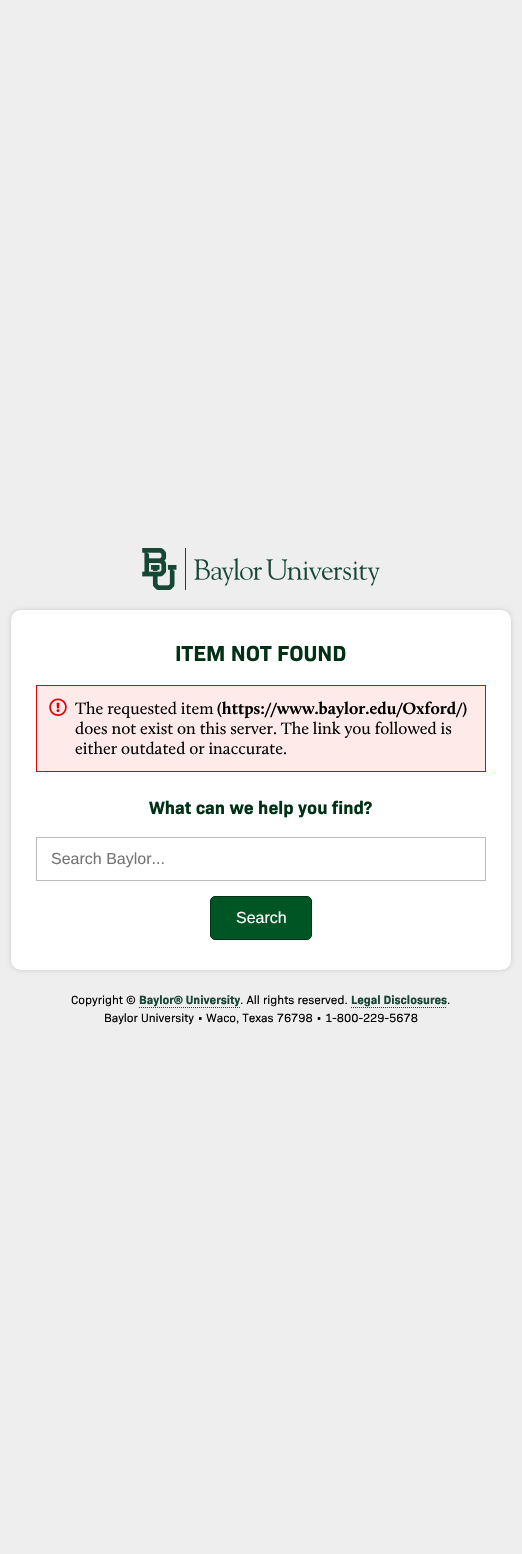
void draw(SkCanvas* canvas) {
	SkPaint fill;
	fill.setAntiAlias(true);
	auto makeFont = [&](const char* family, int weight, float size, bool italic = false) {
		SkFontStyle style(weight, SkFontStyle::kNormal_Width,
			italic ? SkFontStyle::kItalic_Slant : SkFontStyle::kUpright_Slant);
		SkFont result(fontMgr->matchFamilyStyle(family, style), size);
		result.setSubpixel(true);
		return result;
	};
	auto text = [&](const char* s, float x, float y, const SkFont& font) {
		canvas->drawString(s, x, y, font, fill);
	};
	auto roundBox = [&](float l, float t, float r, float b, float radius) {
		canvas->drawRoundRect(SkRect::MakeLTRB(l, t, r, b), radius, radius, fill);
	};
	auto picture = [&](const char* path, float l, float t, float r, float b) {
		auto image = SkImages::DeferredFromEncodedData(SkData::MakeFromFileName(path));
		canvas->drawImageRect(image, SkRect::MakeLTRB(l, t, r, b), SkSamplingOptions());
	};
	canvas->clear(0xFFEEEEEE);
	picture("image0.png", 142, 548, 380, 590);
	fill.setColor(0x26000000);
	fill.setMaskFilter(SkMaskFilter::MakeBlur(kNormal_SkBlurStyle, 2.5f));
	canvas->drawRoundRect(SkRect::MakeLTRB(11, 610, 511, 970), 10, 10, fill);
	fill.setMaskFilter(nullptr);
	fill.setColor(0xFFFFFFFF);
	roundBox(11, 610, 511, 970, 10);
	fill.setColor(0xFFFFEAEA);
	canvas->drawRect(SkRect::MakeLTRB(36.5f, 685.5f, 485.5f, 771.5f), fill);
	fill.setStyle(SkPaint::kStroke_Style);
	fill.setStrokeWidth(1);
	fill.setColor(0xFFE10000);
	canvas->drawRect(SkRect::MakeLTRB(36.5f, 685.5f, 485.5f, 771.5f), fill);
	picture("image1.png", 49, 698, 67, 716);
	fill.setColor(0xFFBDBDBD);
	canvas->drawRect(SkRect::MakeLTRB(36.5f, 837.5f, 485.5f, 880.5f), fill);
	fill.setStyle(SkPaint::kFill_Style);
	fill.setColor(0xFF005525);
	canvas->drawRoundRect(SkRect::MakeLTRB(210.5f, 896.5f, 311.5f, 939.5f), 4.5f, 4.5f, fill);
	fill.setStyle(SkPaint::kStroke_Style);
	fill.setColor(0xFF003015);
	canvas->drawRoundRect(SkRect::MakeLTRB(210.5f, 896.5f, 311.5f, 939.5f), 4.5f, 4.5f, fill);
	fill.setColor(0xFF154734);
	fill.setPathEffect(SkDashPathEffect::Make({{1, 1}}, 0));
	canvas->drawPath(SkPathBuilder().moveTo(139, 1007.5f).lineTo(240, 1007.5f).detach(), fill);
	fill.setPathEffect(nullptr);
	fill.setPathEffect(SkDashPathEffect::Make({{1, 1}}, 0));
	canvas->drawPath(SkPathBuilder().moveTo(351, 1007.5f).lineTo(447, 1007.5f).detach(), fill);
	fill.setPathEffect(nullptr);
	auto font1 = makeFont("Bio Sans", 700, 22);
	fill.setStyle(SkPaint::kFill_Style);
	fill.setColor(0xFF003015);
	text("ITEM NOT FOUND", 175, 661, font1);
	auto font2 = makeFont("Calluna", 400, 17);
	fill.setColor(0xFF000000);
	text("The requested item", 75, 714, font2);
	auto font3 = makeFont("Calluna", 700, 17);
	text("(https://www.baylor.edu/Oxford/)", 217, 714, font3);
	text("does not exist on this server. The link you followed is", 75, 734, font2);
	text("either outdated or inaccurate.", 75, 754, font2);
	auto font4 = makeFont("Bio Sans", 700, 18);
	fill.setColor(0xFF003015);
	text("What can we help you find?", 149, 814, font4);
	auto font5 = makeFont("Liberation Sans", 400, 16);
	fill.setColor(0xFF757575);
	text("Search Baylor...", 51, 864, font5);
	fill.setColor(0xFFFFFFFF);
	text("Search", 236, 923, font5);
	auto font6 = makeFont("Bio Sans", 400, 12);
	fill.setColor(0xFF000000);
	text("Copyright ©", 71, 1004, font6);
	auto font7 = makeFont("Bio Sans", 700, 12);
	fill.setColor(0xFF154734);
	text("Baylor® University", 139, 1004, font7);
	fill.setColor(0xFF000000);
	text(". All rights reserved.", 240, 1004, font6);
	fill.setColor(0xFF154734);
	text("Legal Disclosures", 351, 1004, font7);
	fill.setColor(0xFF000000);
	text(".", 447, 1004, font6);
	text("Baylor University • Waco, Texas 76798 • 1-800-229-5678", 104, 1022, font6);
}
